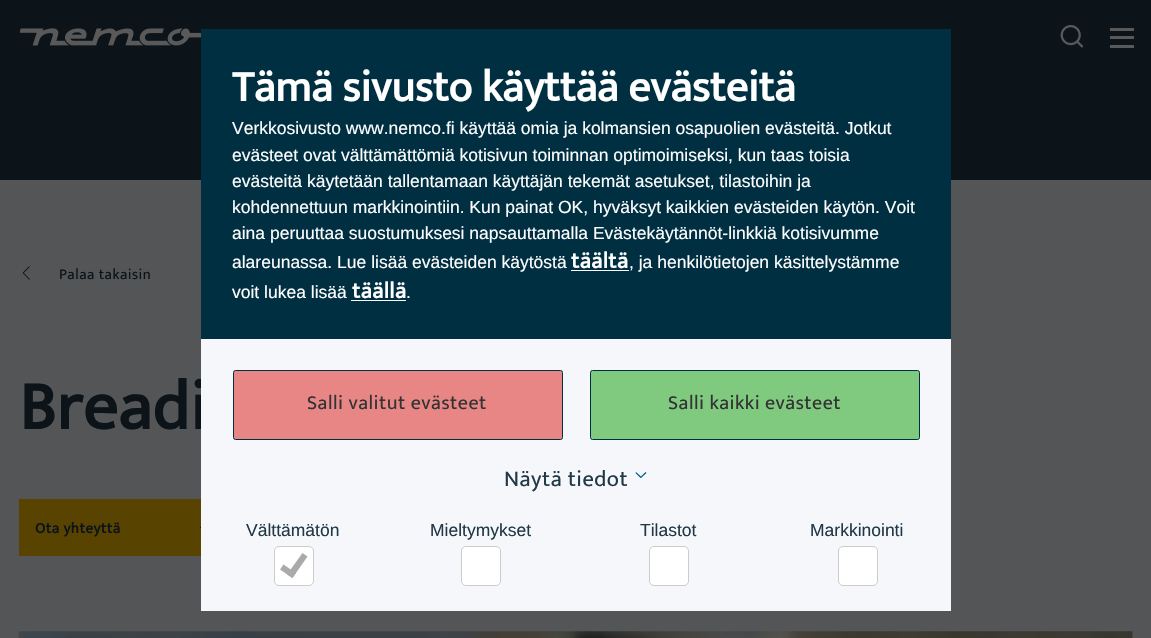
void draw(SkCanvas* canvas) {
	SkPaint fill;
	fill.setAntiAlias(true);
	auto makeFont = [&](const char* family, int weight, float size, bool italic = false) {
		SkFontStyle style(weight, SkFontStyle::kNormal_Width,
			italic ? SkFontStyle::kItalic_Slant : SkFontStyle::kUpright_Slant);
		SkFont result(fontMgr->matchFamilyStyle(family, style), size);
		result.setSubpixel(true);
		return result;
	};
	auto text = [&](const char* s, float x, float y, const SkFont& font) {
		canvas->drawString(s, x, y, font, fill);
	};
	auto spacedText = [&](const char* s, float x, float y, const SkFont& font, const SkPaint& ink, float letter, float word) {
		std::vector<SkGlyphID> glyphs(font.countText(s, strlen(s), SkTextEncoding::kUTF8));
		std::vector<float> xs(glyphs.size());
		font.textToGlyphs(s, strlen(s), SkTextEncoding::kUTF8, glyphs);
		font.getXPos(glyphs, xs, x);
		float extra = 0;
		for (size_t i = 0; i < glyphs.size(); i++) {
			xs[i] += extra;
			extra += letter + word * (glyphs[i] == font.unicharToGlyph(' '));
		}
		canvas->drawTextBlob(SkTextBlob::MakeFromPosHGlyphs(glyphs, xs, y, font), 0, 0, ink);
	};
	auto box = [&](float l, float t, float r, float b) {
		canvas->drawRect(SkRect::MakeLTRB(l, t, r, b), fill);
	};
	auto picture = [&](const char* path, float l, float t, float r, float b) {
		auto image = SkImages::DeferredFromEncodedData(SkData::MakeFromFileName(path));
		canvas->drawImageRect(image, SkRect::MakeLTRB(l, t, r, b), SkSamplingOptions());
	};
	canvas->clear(0xFF545556);
	fill.setColor(0xFF0C1419);
	box(0, 0, 1151, 180);
	picture("image0.png", 20, 28, 201, 46);
	picture("image1.png", 1060, 25, 1084, 48);
	fill.setColor(0xFF595959);
	box(1110, 28, 1134, 31);
	box(1110, 36, 1134, 39);
	box(1110, 45, 1134, 48);
	picture("image2.png", 22, 266, 30, 280);
	fill.setColor(0xFF594300);
	box(19, 499, 201, 556);
	picture("image3.png", 199, 527, 201, 529);
	picture("image4.png", 18, 631, 1133, 638);
	fill.setColor(0xFF002F42);
	box(201, 29, 951, 339);
	fill.setColor(0xFFFFFFFF);
	box(571, 270, 629, 271);
	box(351, 300, 406, 301);
	auto font1 = makeFont("Mukta", 400, 15);
	fill.setColor(0xFF0C1419);
	spacedText("Palaa takaisin", 59, 279, font1, fill, 0.5f, 0);
	auto font2 = makeFont("Mukta", 700, 69);
	spacedText("Breadi", 19, 429, font2, fill, 0.5f, 0);
	auto font3 = makeFont("Mukta", 700, 15);
	spacedText("Ota yhteyttä", 35, 533, font3, fill, 0.5f, 0);
	auto font4 = makeFont("Mukta", 700, 43.75f);
	fill.setColor(0xFFFFFFFF);
	text("Tämä sivusto käyttää evästeitä", 232, 101, font4);
	auto font5 = makeFont("Liberation Sans", 400, 17.5f);
	text("Verkkosivusto www.nemco.fi käyttää omia ja kolmansien osapuolien evästeitä. Jotkut", 232, 134, font5);
	text("evästeet ovat välttämättömiä kotisivun toiminnan optimoimiseksi, kun taas toisia", 232, 161, font5);
	text("evästeitä käytetään tallentamaan käyttäjän tekemät asetukset, tilastoihin ja", 232, 187, font5);
	text("kohdennettuun markkinointiin. Kun painat OK, hyväksyt kaikkien evästeiden käytön. Voit", 232, 213, font5);
	text("aina peruuttaa suostumuksesi napsauttamalla Evästekäytännöt-linkkiä kotisivumme", 232, 239, font5);
	text("alareunassa. Lue lisää evästeiden käytöstä", 232, 268, font5);
	auto font6 = makeFont("Mukta", 700, 22.5f);
	spacedText("täältä", 571, 268, font6, fill, 0.5f, 0);
	text(", ja henkilötietojen käsittelystämme", 629, 268, font5);
	text("voit lukea lisää", 232, 298, font5);
	spacedText("täällä", 352, 298, font6, fill, 0.5f, 0);
	text(".", 406, 298, font5);
	fill.setColor(0xFFF5F7FA);
	box(201, 339, 951, 611);
	fill.setColor(0xFFE88585);
	canvas->drawRoundRect(SkRect::MakeLTRB(233.5f, 370.5f, 562.5f, 439.5f), 2, 2, fill);
	fill.setStyle(SkPaint::kStroke_Style);
	fill.setStrokeWidth(1);
	fill.setColor(0xFF002F42);
	canvas->drawRoundRect(SkRect::MakeLTRB(233.5f, 370.5f, 562.5f, 439.5f), 2, 2, fill);
	auto font7 = makeFont("Mukta", 400, 20);
	fill.setStyle(SkPaint::kFill_Style);
	fill.setColor(0xFF333333);
	spacedText("Salli valitut evästeet", 307, 409, font7, fill, 0.5f, 0);
	fill.setColor(0xFF7FCA7F);
	canvas->drawRoundRect(SkRect::MakeLTRB(590.5f, 370.5f, 919.5f, 439.5f), 2, 2, fill);
	fill.setStyle(SkPaint::kStroke_Style);
	fill.setColor(0xFF002F42);
	canvas->drawRoundRect(SkRect::MakeLTRB(590.5f, 370.5f, 919.5f, 439.5f), 2, 2, fill);
	fill.setStyle(SkPaint::kFill_Style);
	fill.setColor(0xFF333333);
	spacedText("Salli kaikki evästeet", 668, 409, font7, fill, 0.5f, 0);
	auto font8 = makeFont("Mukta", 400, 22.5f);
	fill.setColor(0xFF213847);
	spacedText("Näytä tiedot", 504, 486, font8, fill, 0.5f, 0);
	fill.setColor(0xFF005A8C);
	canvas->drawPath(SkPathBuilder().moveTo(636, 472).lineTo(641.5f, 477).lineTo(640.5f, 478).lineTo(635.5f, 473).close().detach(), fill);
	canvas->drawPath(SkPathBuilder().moveTo(640.5f, 477).lineTo(645.5f, 472).lineTo(646.5f, 473).lineTo(641, 478).close().detach(), fill);
	fill.setColor(0xFF213847);
	text("Välttämätön", 246, 536, font5);
	fill.setColor(0xFFFFFFFF);
	canvas->drawRoundRect(SkRect::MakeLTRB(274.5f, 546.5f, 313.5f, 585.5f), 4.5f, 4.5f, fill);
	fill.setStyle(SkPaint::kStroke_Style);
	fill.setColor(0xFFCCCCCC);
	canvas->drawRoundRect(SkRect::MakeLTRB(274.5f, 546.5f, 313.5f, 585.5f), 4.5f, 4.5f, fill);
	fill.setStyle(SkPaint::kFill_Style);
	fill.setColor(0xFFAAAAAA);
	canvas->drawPath(SkPathBuilder().moveTo(307.5f, 556.5f).lineTo(292.5f, 578).lineTo(287, 574.5f).lineTo(302.5f, 553).close().detach(), fill);
	canvas->drawPath(SkPathBuilder().moveTo(296, 573).lineTo(292.5f, 578).lineTo(280, 569.5f).lineTo(283.5f, 564.5f).close().detach(), fill);
	fill.setColor(0xFF213847);
	text("Mieltymykset", 430, 536, font5);
	fill.setColor(0xFFFFFFFF);
	canvas->drawRoundRect(SkRect::MakeLTRB(461.5f, 546.5f, 500.5f, 585.5f), 4.5f, 4.5f, fill);
	fill.setStyle(SkPaint::kStroke_Style);
	fill.setColor(0xFFCCCCCC);
	canvas->drawRoundRect(SkRect::MakeLTRB(461.5f, 546.5f, 500.5f, 585.5f), 4.5f, 4.5f, fill);
	fill.setStyle(SkPaint::kFill_Style);
	fill.setColor(0xFF213847);
	text("Tilastot", 640, 536, font5);
	fill.setColor(0xFFFFFFFF);
	canvas->drawRoundRect(SkRect::MakeLTRB(649.5f, 546.5f, 688.5f, 585.5f), 4.5f, 4.5f, fill);
	fill.setStyle(SkPaint::kStroke_Style);
	fill.setColor(0xFFCCCCCC);
	canvas->drawRoundRect(SkRect::MakeLTRB(649.5f, 546.5f, 688.5f, 585.5f), 4.5f, 4.5f, fill);
	fill.setStyle(SkPaint::kFill_Style);
	fill.setColor(0xFF213847);
	text("Markkinointi", 810, 536, font5);
	fill.setColor(0xFFFFFFFF);
	canvas->drawRoundRect(SkRect::MakeLTRB(838.5f, 546.5f, 877.5f, 585.5f), 4.5f, 4.5f, fill);
	fill.setStyle(SkPaint::kStroke_Style);
	fill.setColor(0xFFCCCCCC);
	canvas->drawRoundRect(SkRect::MakeLTRB(838.5f, 546.5f, 877.5f, 585.5f), 4.5f, 4.5f, fill);
}
